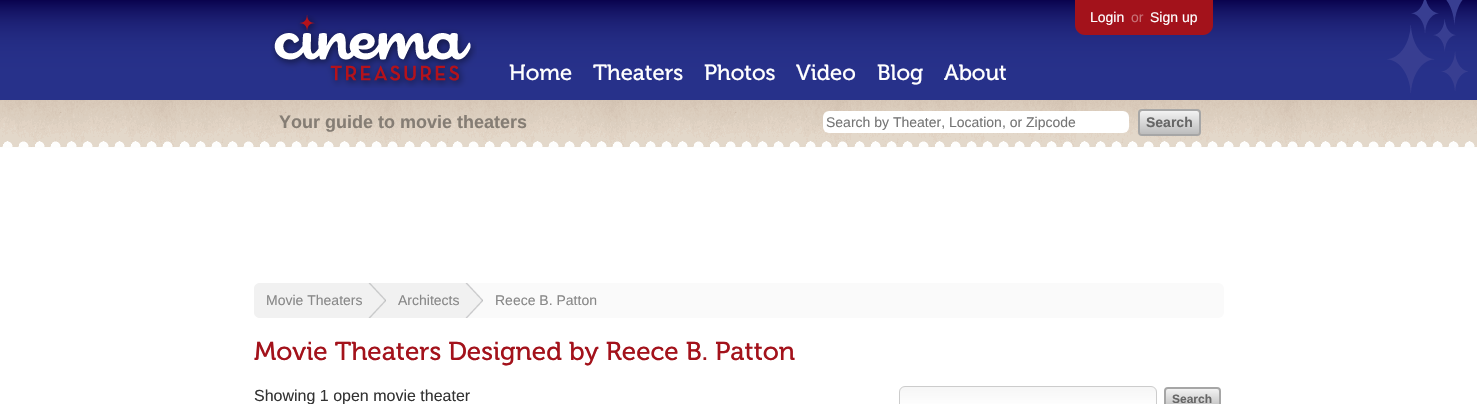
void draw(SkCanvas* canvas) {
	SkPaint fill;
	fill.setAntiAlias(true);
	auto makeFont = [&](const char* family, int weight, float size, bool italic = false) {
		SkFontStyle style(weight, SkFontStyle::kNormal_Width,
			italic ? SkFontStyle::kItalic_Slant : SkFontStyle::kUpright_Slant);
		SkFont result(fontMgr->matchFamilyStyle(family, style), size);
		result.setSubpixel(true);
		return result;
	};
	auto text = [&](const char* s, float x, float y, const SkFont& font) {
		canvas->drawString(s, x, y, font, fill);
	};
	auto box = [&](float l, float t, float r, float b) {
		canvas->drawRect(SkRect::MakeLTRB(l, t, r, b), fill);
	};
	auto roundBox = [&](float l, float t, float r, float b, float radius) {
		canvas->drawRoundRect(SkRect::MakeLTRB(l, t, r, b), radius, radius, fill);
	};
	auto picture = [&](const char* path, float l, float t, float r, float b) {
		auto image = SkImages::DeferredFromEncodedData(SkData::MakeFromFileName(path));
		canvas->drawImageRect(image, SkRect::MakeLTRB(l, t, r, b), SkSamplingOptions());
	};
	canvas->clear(0xFFFFFFFF);
	picture("image0.png", 0, 0, 1477, 100);
	picture("image1.png", 271, 15, 477, 88);
	fill.setColor(0xFFA3121B);
	canvas->drawPath(SkPathBuilder().moveTo(1075, 0).lineTo(1213, 0).lineTo(1213, 25).cubicTo(1213, 30.5f, 1208.5f, 35, 1203, 35).lineTo(1085, 35).cubicTo(1079.5f, 35, 1075, 30.5f, 1075, 25).close().detach(), fill);
	picture("image2.png", 1387, 0, 1468, 93);
	picture("image3.png", 0, 100, 1477, 148);
	fill.setColor(0xFFFFFFFF);
	roundBox(823, 111, 1129, 133, 6);
	{
		const SkColor colors[] = {0xFFF2F2F2, 0xFFBDBDBD};
		const float stops[] = {0, 1};
		const SkPoint ends[] = {{1170, 111}, {1170, 134}};
		fill.setShader(SkGradientShader::MakeLinear(ends, colors, stops, 2, SkTileMode::kClamp));
		fill.setAlpha(255);
	}
	roundBox(1140, 111, 1199, 134, 2);
	fill.setStyle(SkPaint::kStroke_Style);
	fill.setStrokeWidth(2);
	fill.setShader(nullptr);
	fill.setColor(0xFFA6A6A6);
	canvas->drawRoundRect(SkRect::MakeLTRB(1139, 110, 1200, 135), 3, 3, fill);
	fill.setStyle(SkPaint::kFill_Style);
	fill.setColor(0xFFFAFAFA);
	roundBox(254, 283, 1224, 318, 6);
	fill.setColor(0xFFF1F1F1);
	canvas->drawPath(SkPathBuilder().moveTo(260, 283).lineTo(386, 283).lineTo(386, 318).lineTo(260, 318).cubicTo(256.5f, 318, 254, 315.5f, 254, 312).lineTo(254, 289).cubicTo(254, 285.5f, 256.5f, 283, 260, 283).close().detach(), fill);
	picture("image4.png", 368, 283, 386, 318);
	box(386, 283, 483, 318);
	picture("image5.png", 465, 283, 483, 318);
	canvas->save();
	canvas->clipPath(SkPathBuilder().moveTo(905, 386).lineTo(1151, 386).cubicTo(1154.5f, 386, 1157, 388.5f, 1157, 392).lineTo(1157, 404).cubicTo(1157, 407.5f, 1154.5f, 410, 1151, 410).lineTo(905, 410).cubicTo(901.5f, 410, 899, 407.5f, 899, 404).lineTo(899, 392).cubicTo(899, 388.5f, 901.5f, 386, 905, 386).close().detach(), true);
	{
		const SkColor colors[] = {0xFFF6F6F6, 0xFFFFFFFF};
		const float stops[] = {0, 1};
		const SkPoint ends[] = {{1028, 387}, {1028, 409}};
		fill.setShader(SkGradientShader::MakeLinear(ends, colors, stops, 2, SkTileMode::kClamp));
		fill.setAlpha(255);
	}
	box(899, 387, 1157, 404);
	canvas->restore();
	fill.setStyle(SkPaint::kStroke_Style);
	fill.setStrokeWidth(1);
	fill.setShader(nullptr);
	fill.setColor(0xFFCCCCCC);
	canvas->drawRoundRect(SkRect::MakeLTRB(899.5f, 386.5f, 1156.5f, 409.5f), 5.5f, 5.5f, fill);
	fill.setStyle(SkPaint::kFill_Style);
	{
		const SkColor colors[] = {0xFFF2F2F2, 0xFFBDBDBD};
		const float stops[] = {0, 1};
		const SkPoint ends[] = {{1193, 389}, {1193, 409}};
		fill.setShader(SkGradientShader::MakeLinear(ends, colors, stops, 2, SkTileMode::kClamp));
		fill.setAlpha(255);
	}
	roundBox(1166, 389, 1219, 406, 2);
	fill.setStyle(SkPaint::kStroke_Style);
	fill.setStrokeWidth(2);
	fill.setShader(nullptr);
	fill.setColor(0xFFA6A6A6);
	canvas->drawRoundRect(SkRect::MakeLTRB(1165, 388, 1220, 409), 3, 3, fill);
	auto font1 = makeFont("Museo", 400, 22);
	fill.setStyle(SkPaint::kFill_Style);
	fill.setColor(0xFFFFFFFF);
	text("Home", 509, 80, font1);
	text("Theaters", 593, 80, font1);
	text("Photos", 704, 80, font1);
	text("Video", 796, 80, font1);
	text("Blog", 877, 80, font1);
	text("About", 944, 80, font1);
	auto font2 = makeFont("Liberation Sans", 400, 14);
	text("Login", 1090, 22, font2);
	fill.setColor(0xFFC87176);
	text("or", 1131, 22, font2);
	fill.setColor(0xFFFFFFFF);
	text("Sign up", 1150, 22, font2);
	auto font3 = makeFont("Liberation Sans", 700, 18);
	fill.setColor(0xFF857D74);
	text("Your guide to movie theaters", 279, 128, font3);
	fill.setColor(0xFF757575);
	text("Search by Theater, Location, or Zipcode", 826, 127, font2);
	auto font4 = makeFont("Liberation Sans", 700, 14);
	fill.setColor(0xFF666666);
	text("Search", 1146, 127, font4);
	fill.setColor(0xFF888888);
	text("Movie Theaters", 266, 305, font2);
	text("Architects", 398, 305, font2);
	text("Reece B. Patton", 495, 305, font2);
	auto font5 = makeFont("Museo", 400, 26);
	fill.setColor(0xFFA3121B);
	text("Movie Theaters Designed by Reece B. Patton", 254, 360, font5);
	auto font6 = makeFont("Liberation Sans", 400, 16);
	fill.setColor(0xFF333333);
	text("Showing 1 open movie theater", 254, 401, font6);
	auto font7 = makeFont("Liberation Sans", 700, 12);
	fill.setColor(0xFF666666);
	text("Search", 1172, 403, font7);
}
